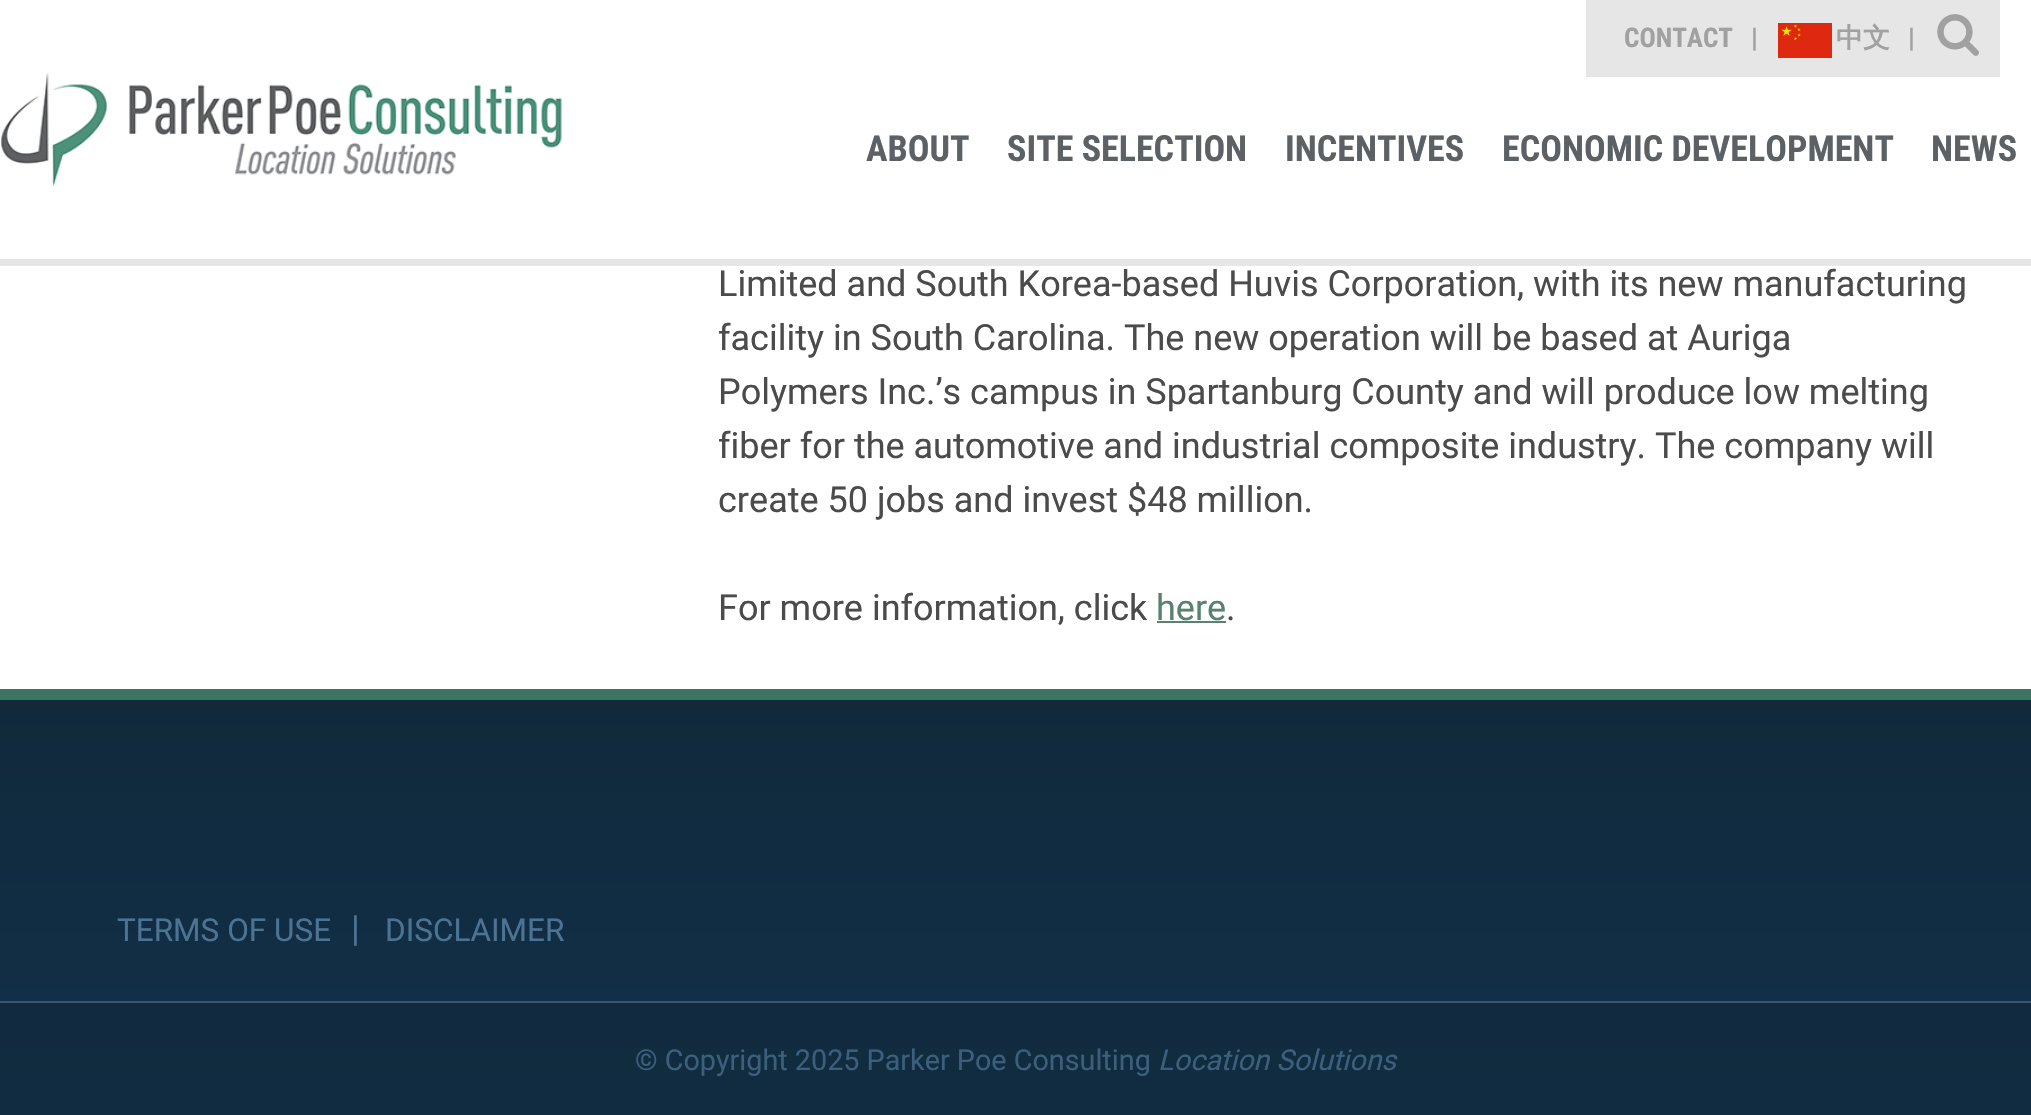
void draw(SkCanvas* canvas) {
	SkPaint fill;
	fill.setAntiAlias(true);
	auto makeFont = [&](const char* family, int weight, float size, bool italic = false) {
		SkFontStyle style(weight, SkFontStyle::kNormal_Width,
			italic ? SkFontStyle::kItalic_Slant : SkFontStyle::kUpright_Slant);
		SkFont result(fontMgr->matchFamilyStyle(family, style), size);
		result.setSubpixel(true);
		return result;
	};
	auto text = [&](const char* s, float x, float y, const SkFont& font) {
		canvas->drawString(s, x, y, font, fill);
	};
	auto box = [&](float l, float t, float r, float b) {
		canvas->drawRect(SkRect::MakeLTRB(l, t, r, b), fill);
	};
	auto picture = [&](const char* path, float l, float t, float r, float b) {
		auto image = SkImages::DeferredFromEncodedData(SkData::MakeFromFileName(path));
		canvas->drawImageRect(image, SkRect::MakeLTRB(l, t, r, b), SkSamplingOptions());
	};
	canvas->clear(0xFFFFFFFF);
	fill.setColor(0xFFE6E6E6);
	box(0, 259, 2031, 266);
	picture("image0.png", 1, 73, 562, 187);
	box(1586, 0, 2000, 77);
	picture("image1.png", 1778, 23, 1832, 58);
	picture("image2.png", 1937, 14, 1979, 56);
	fill.setColor(0xFF578270);
	box(1157, 621, 1226, 623);
	{
		const SkColor colors[] = {0xFF11293B, 0xFF11314B};
		const float stops[] = {0, 1};
		const SkPoint ends[] = {{1016, 700}, {1016, 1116}};
		fill.setShader(SkGradientShader::MakeLinear(ends, colors, stops, 2, SkTileMode::kClamp));
		fill.setAlpha(255);
	}
	box(0, 700, 2031, 1001);
	{
		const SkColor colors[] = {0xFF11283B, 0xFF112B40};
		const float stops[] = {0, 1};
		const SkPoint ends[] = {{1016, 700}, {1016, 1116}};
		fill.setShader(SkGradientShader::MakeLinear(ends, colors, stops, 2, SkTileMode::kClamp));
		fill.setAlpha(255);
	}
	box(0, 1003, 2031, 1115);
	fill.setShader(nullptr);
	fill.setColor(0xFF3B7462);
	box(0, 689, 2031, 700);
	fill.setColor(0xFF355772);
	box(0, 1001, 2031, 1003);
	auto font1 = makeFont("Roboto Condensed", 700, 27);
	fill.setColor(0xFFA1A1A1);
	text("CONTACT", 1624, 47, font1);
	text("|", 1751, 47, font1);
	auto font2 = makeFont("WenQuanYi Zen Hei", 700, 27);
	text("中文", 1836, 47, font2);
	text("|", 1908, 47, font1);
	auto font3 = makeFont("Roboto Condensed", 700, 36);
	fill.setColor(0xFF5B6165);
	text("ABOUT", 866, 161, font3);
	text("SITE SELECTION", 1007, 161, font3);
	text("INCENTIVES", 1285, 161, font3);
	text("ECONOMIC DEVELOPMENT", 1502, 161, font3);
	text("NEWS", 1931, 161, font3);
	auto font4 = makeFont("Roboto", 400, 36);
	fill.setColor(0xFF4B4B4B);
	text("Limited and South Korea-based Huvis Corporation, with its new manufacturing", 718, 296, font4);
	text("facility in South Carolina. The new operation will be based at Auriga", 718, 350, font4);
	text("Polymers Inc.’s campus in Spartanburg County and will produce low melting", 718, 404, font4);
	text("fiber for the automotive and industrial composite industry. The company will", 718, 458, font4);
	text("create 50 jobs and invest $48 million.", 718, 512, font4);
	text("For more information, click", 718, 620, font4);
	fill.setColor(0xFF578270);
	text("here", 1156, 620, font4);
	fill.setColor(0xFF4B4B4B);
	text(".", 1226, 620, font4);
	auto font5 = makeFont("Roboto", 400, 31.5f);
	fill.setColor(0xFF4D7393);
	text("TERMS OF USE", 117, 941, font5);
	text("|", 351, 941, font4);
	text("DISCLAIMER", 385, 941, font5);
	auto font6 = makeFont("Roboto", 400, 28.75f);
	fill.setColor(0xFF3B5F7D);
	text("© Copyright 2025 Parker Poe Consulting", 635, 1070, font6);
	auto font7 = makeFont("Roboto", 400, 28.75f, true);
	text("Location Solutions", 1158, 1070, font7);
}
